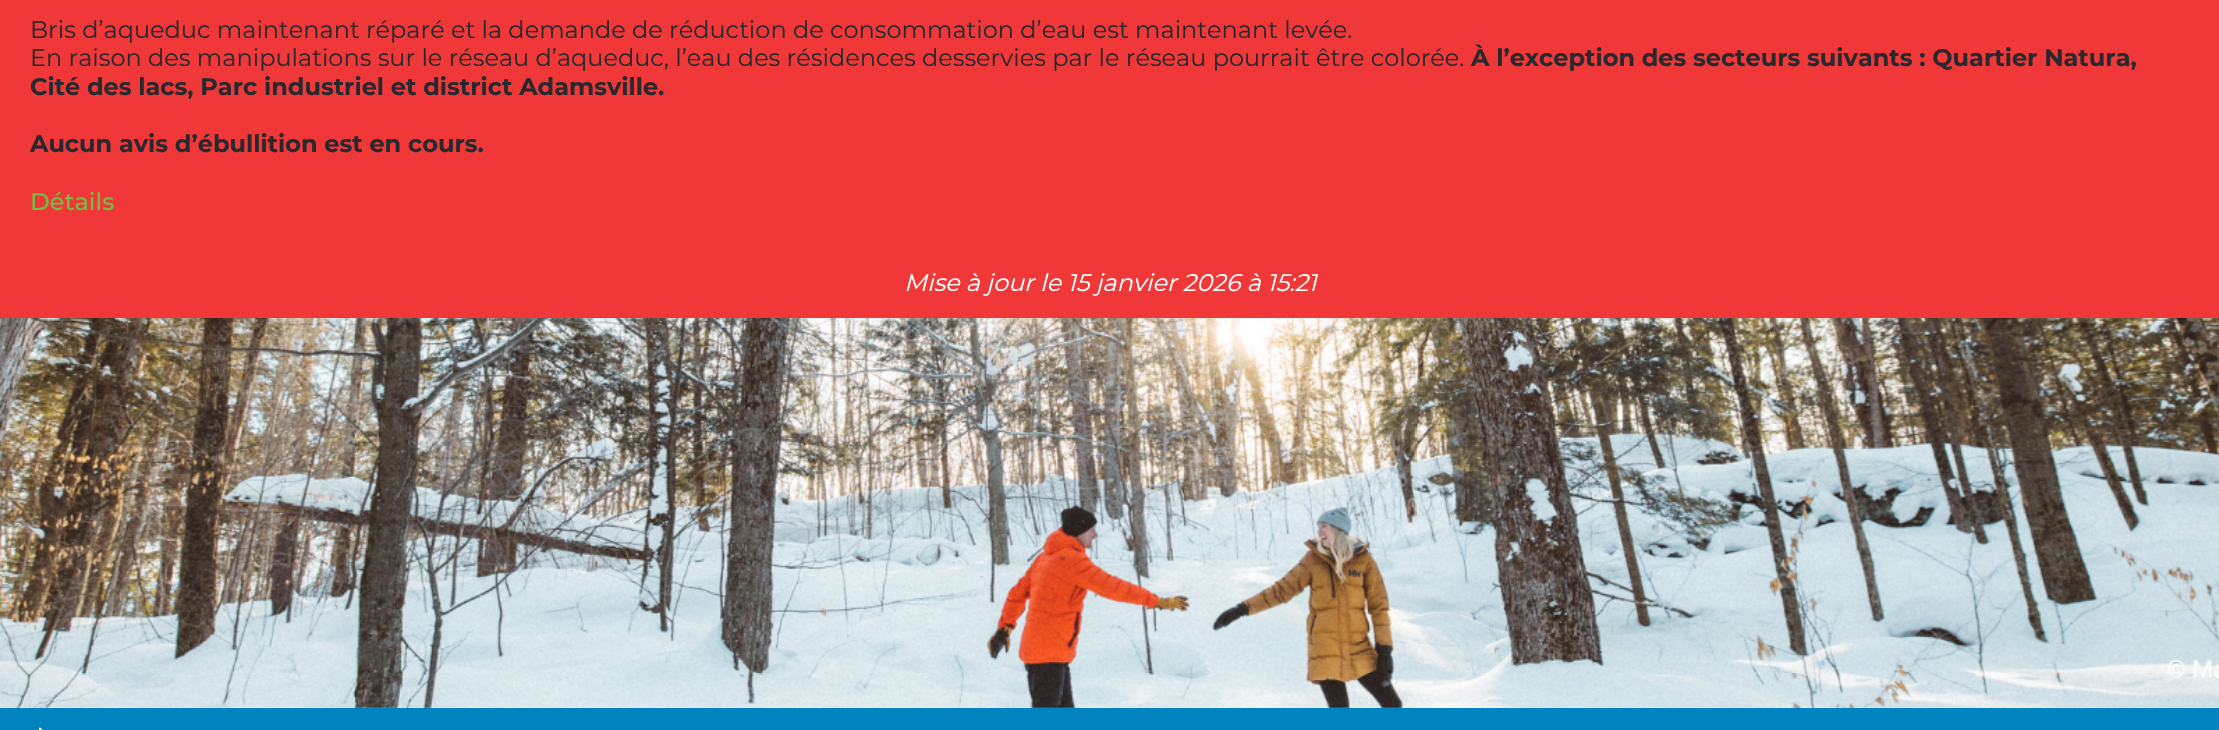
void draw(SkCanvas* canvas) {
	SkPaint fill;
	fill.setAntiAlias(true);
	auto makeFont = [&](const char* family, int weight, float size, bool italic = false) {
		SkFontStyle style(weight, SkFontStyle::kNormal_Width,
			italic ? SkFontStyle::kItalic_Slant : SkFontStyle::kUpright_Slant);
		SkFont result(fontMgr->matchFamilyStyle(family, style), size);
		result.setSubpixel(true);
		return result;
	};
	auto text = [&](const char* s, float x, float y, const SkFont& font) {
		canvas->drawString(s, x, y, font, fill);
	};
	auto box = [&](float l, float t, float r, float b) {
		canvas->drawRect(SkRect::MakeLTRB(l, t, r, b), fill);
	};
	auto picture = [&](const char* path, float l, float t, float r, float b) {
		auto image = SkImages::DeferredFromEncodedData(SkData::MakeFromFileName(path));
		canvas->drawImageRect(image, SkRect::MakeLTRB(l, t, r, b), SkSamplingOptions());
	};
	canvas->clear(0xFFFFFFFF);
	fill.setColor(0xFFF03838);
	box(0, 0, 2219, 318);
	picture("image0.png", 0, 318, 2219, 708);
	fill.setColor(0xFF0083BF);
	box(0, 708, 2219, 730);
	picture("image1.png", 39, 727, 43, 730);
	auto font1 = makeFont("Montserrat", 400, 24);
	fill.setColor(0xFF27292F);
	text("Bris d’aqueduc maintenant réparé et la demande de réduction de consommation d’eau est maintenant levée.", 30, 38, font1);
	text("En raison des manipulations sur le réseau d’aqueduc, l’eau des résidences desservies par le réseau pourrait être colorée.", 30, 66, font1);
	auto font2 = makeFont("Montserrat", 700, 24);
	text("À l’exception des secteurs suivants : Quartier Natura,", 1471, 66, font2);
	text("Cité des lacs, Parc industriel et district Adamsville.", 30, 95, font2);
	text("Aucun avis d’ébullition est en cours.", 30, 152, font2);
	auto font3 = makeFont("Montserrat", 500, 24);
	fill.setColor(0xFF71BF44);
	text("Détails", 30, 210, font3);
	auto font4 = makeFont("Montserrat", 400, 24, true);
	fill.setColor(0xFFFFFFFF);
	text("Mise à jour le 15 janvier 2026 à 15:21", 904, 291, font4);
}
